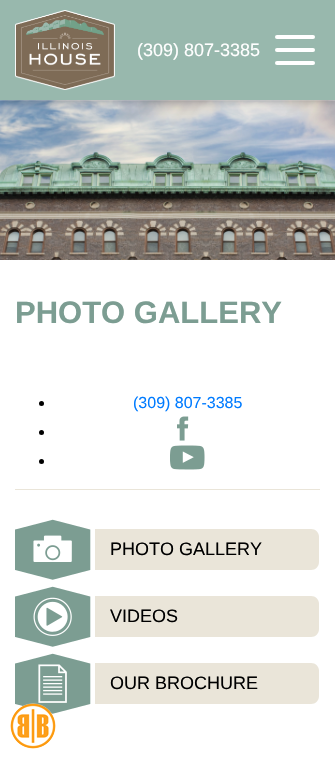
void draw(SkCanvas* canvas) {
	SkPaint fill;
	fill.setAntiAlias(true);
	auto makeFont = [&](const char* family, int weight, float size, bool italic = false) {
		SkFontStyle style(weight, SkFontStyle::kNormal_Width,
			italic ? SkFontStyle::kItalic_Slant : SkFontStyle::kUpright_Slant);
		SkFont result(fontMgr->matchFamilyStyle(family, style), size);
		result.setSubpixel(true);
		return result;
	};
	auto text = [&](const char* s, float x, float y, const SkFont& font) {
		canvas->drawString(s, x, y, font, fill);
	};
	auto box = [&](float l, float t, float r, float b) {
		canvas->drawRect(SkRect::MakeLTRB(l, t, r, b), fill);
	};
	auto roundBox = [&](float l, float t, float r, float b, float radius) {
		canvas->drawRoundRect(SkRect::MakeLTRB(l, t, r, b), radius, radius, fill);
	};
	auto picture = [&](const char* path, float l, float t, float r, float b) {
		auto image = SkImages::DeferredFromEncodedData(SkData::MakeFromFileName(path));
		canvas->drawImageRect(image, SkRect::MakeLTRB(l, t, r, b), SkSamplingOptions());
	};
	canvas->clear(0xFFFFFFFF);
	picture("image1.png", 0, 100, 335, 260);
	fill.setColor(0x4D000000);
	fill.setMaskFilter(SkMaskFilter::MakeBlur(kNormal_SkBlurStyle, 5));
	canvas->drawRect(SkRect::MakeLTRB(0, 0, 335, 100), fill);
	fill.setMaskFilter(nullptr);
	fill.setColor(0xFF98B8AD);
	box(0, 0, 335, 100);
	picture("image0.png", 15, 10, 115, 90);
	fill.setColor(0xFFFFFFFF);
	roundBox(275, 35, 315, 39, 2);
	roundBox(275, 48, 315, 52, 2);
	roundBox(275, 61, 315, 65, 2);
	fill.setColor(0xFFEAE5D9);
	box(15, 489, 320, 490);
	fill.setColor(0xFF000000);
	canvas->drawCircle(41.5f, 403.5f, 2.5f, fill);
	canvas->drawCircle(41.5f, 432.5f, 2.5f, fill);
	picture("image2.png", 177, 416, 189, 441);
	canvas->drawCircle(41.5f, 461.5f, 2.5f, fill);
	picture("image3.png", 170, 445, 205, 470);
	picture("image4.png", 15, 519, 91, 580);
	fill.setColor(0xFFEAE5D9);
	canvas->drawPath(SkPathBuilder().moveTo(95, 529).lineTo(311, 529).cubicTo(315.5f, 529, 319, 532.5f, 319, 537).lineTo(319, 562).cubicTo(319, 566.5f, 315.5f, 570, 311, 570).lineTo(95, 570).close().detach(), fill);
	picture("image5.png", 15, 586, 91, 647);
	canvas->drawPath(SkPathBuilder().moveTo(95, 596).lineTo(311, 596).cubicTo(315.5f, 596, 319, 599.5f, 319, 604).lineTo(319, 629).cubicTo(319, 633.5f, 315.5f, 637, 311, 637).lineTo(95, 637).close().detach(), fill);
	picture("image6.png", 15, 653, 91, 714);
	canvas->drawPath(SkPathBuilder().moveTo(95, 663).lineTo(311, 663).cubicTo(315.5f, 663, 319, 666.5f, 319, 671).lineTo(319, 696).cubicTo(319, 700.5f, 315.5f, 704, 311, 704).lineTo(95, 704).close().detach(), fill);
	picture("image7.png", 10, 703, 56, 749);
	auto font1 = makeFont("Liberation Sans", 400, 18);
	fill.setColor(0xFFFFFFFF);
	text("(309) 807-3385", 137, 56, font1);
	auto font2 = makeFont("Liberation Sans", 700, 31);
	fill.setColor(0xFF7C9D92);
	text("PHOTO GALLERY", 15, 323, font2);
	auto font3 = makeFont("Liberation Sans", 400, 16);
	fill.setColor(0xFF007BFF);
	text("(309) 807-3385", 133, 408, font3);
	fill.setColor(0xFF000000);
	text("PHOTO GALLERY", 110, 555, font1);
	text("VIDEOS", 110, 622, font1);
	text("OUR BROCHURE", 110, 689, font1);
}
